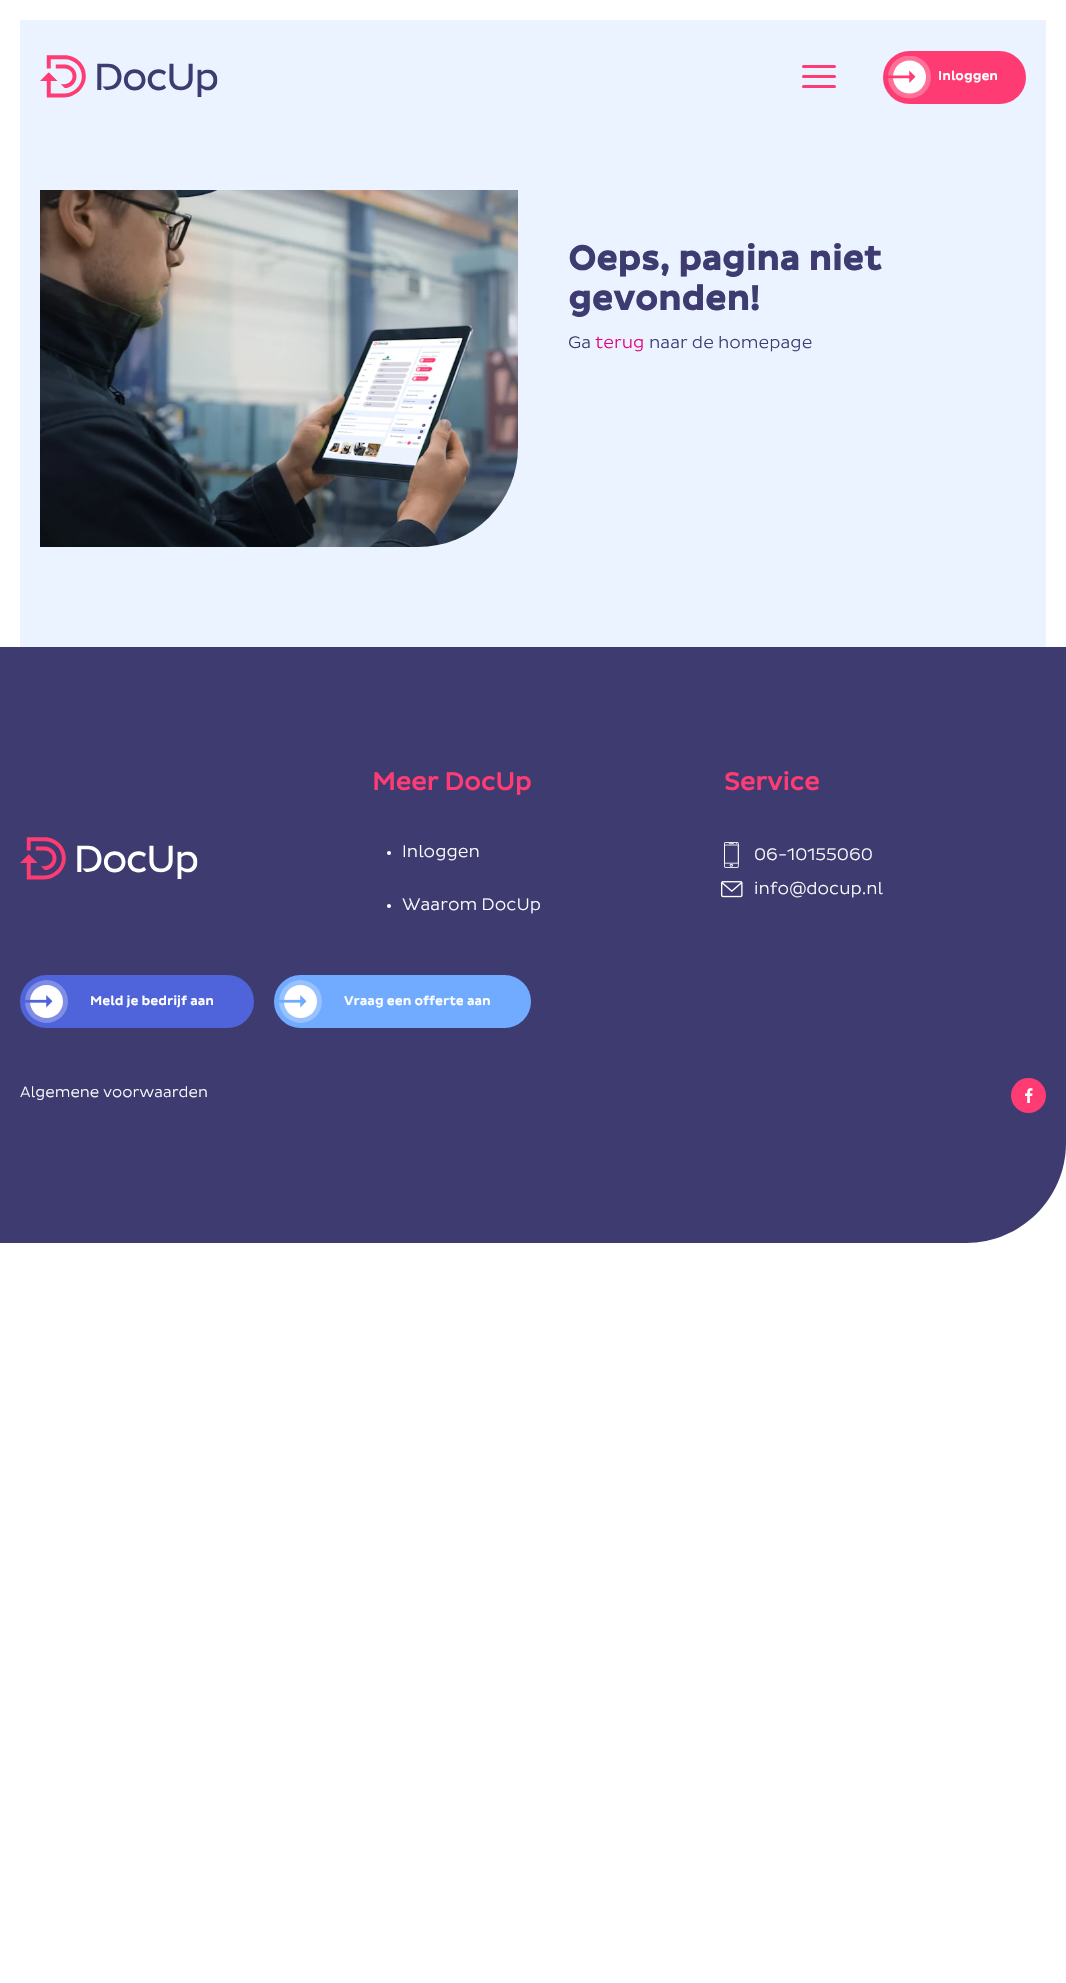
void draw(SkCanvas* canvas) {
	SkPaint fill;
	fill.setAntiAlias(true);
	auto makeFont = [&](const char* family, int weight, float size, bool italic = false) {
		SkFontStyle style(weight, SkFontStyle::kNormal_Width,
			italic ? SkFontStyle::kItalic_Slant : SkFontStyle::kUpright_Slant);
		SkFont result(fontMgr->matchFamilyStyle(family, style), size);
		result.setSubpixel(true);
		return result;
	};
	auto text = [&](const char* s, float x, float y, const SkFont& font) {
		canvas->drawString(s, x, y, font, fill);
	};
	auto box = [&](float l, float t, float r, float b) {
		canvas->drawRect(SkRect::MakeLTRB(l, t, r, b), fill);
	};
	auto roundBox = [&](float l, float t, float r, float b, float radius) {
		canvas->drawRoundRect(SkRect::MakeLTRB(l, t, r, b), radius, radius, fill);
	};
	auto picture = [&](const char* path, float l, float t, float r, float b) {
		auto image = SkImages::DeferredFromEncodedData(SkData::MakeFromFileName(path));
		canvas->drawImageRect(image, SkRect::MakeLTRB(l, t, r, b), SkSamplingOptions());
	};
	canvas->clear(0xFFFFFFFF);
	fill.setColor(0xFFEAF3FF);
	box(20, 20, 1046, 647);
	picture("image0.png", 40, 55, 218, 98);
	fill.setColor(0xFFFF3B73);
	roundBox(802, 65, 836, 68, 1.5f);
	roundBox(802, 75, 836, 78, 1.5f);
	roundBox(802, 85, 836, 88, 1.5f);
	roundBox(883, 51, 1026, 104, 26.5f);
	picture("image1.png", 888, 56, 931, 99);
	picture("image2.png", 40, 190, 518, 547);
	fill.setColor(0xFF3D3B70);
	canvas->drawPath(SkPathBuilder().moveTo(0, 647).lineTo(1066, 647).lineTo(1066, 1143).cubicTo(1066, 1198, 1021, 1243, 966, 1243).lineTo(0, 1243).close().detach(), fill);
	picture("image3.png", 20, 837, 198, 880);
	fill.setColor(0xFFFFFFFF);
	canvas->drawCircle(389, 853, 2, fill);
	canvas->drawCircle(389, 906, 2, fill);
	picture("image4.png", 724, 842, 739, 868);
	picture("image5.png", 721, 881, 743, 898);
	fill.setColor(0xFF4F63DB);
	roundBox(20, 975, 254, 1028, 26.5f);
	picture("image6.png", 25, 980, 68, 1023);
	fill.setColor(0xFF70ABFF);
	roundBox(274, 975, 531, 1028, 26.5f);
	picture("image7.png", 279, 980, 322, 1023);
	fill.setColor(0xFFFF3B73);
	canvas->drawCircle(1028.5f, 1095.5f, 17.5f, fill);
	picture("image8.png", 1025, 1088, 1033, 1103);
	auto font1 = makeFont("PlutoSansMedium", 400, 13);
	fill.setColor(0xFFFFFFFF);
	text("Inloggen", 938, 80, font1);
	auto font2 = makeFont("PlutoSansMedium", 700, 35);
	fill.setColor(0xFF3D3B70);
	text("Oeps, pagina niet", 568, 270, font2);
	text("gevonden!", 568, 310, font2);
	auto font3 = makeFont("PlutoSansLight", 400, 17);
	text("Ga", 568, 348, font3);
	fill.setColor(0xFFE6007E);
	text("terug", 595, 348, font3);
	fill.setColor(0xFF3D3B70);
	text("naar de homepage", 649, 348, font3);
	auto font4 = makeFont("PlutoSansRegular", 700, 25);
	fill.setColor(0xFFFF3B73);
	text("Meer DocUp", 372, 790, font4);
	fill.setColor(0xFFFFFFFF);
	text("Inloggen", 402, 857, font3);
	text("Waarom DocUp", 402, 910, font3);
	fill.setColor(0xFFFF3B73);
	text("Service", 724, 790, font4);
	fill.setColor(0xFFFFFFFF);
	text("06-10155060", 754, 860, font3);
	text("info@docup.nl", 754, 894, font3);
	text("Meld je bedrijf aan", 90, 1005, font1);
	text("Vraag een offerte aan", 344, 1005, font1);
	auto font5 = makeFont("PlutoSansLight", 400, 15);
	text("Algemene voorwaarden", 20, 1097, font5);
}
